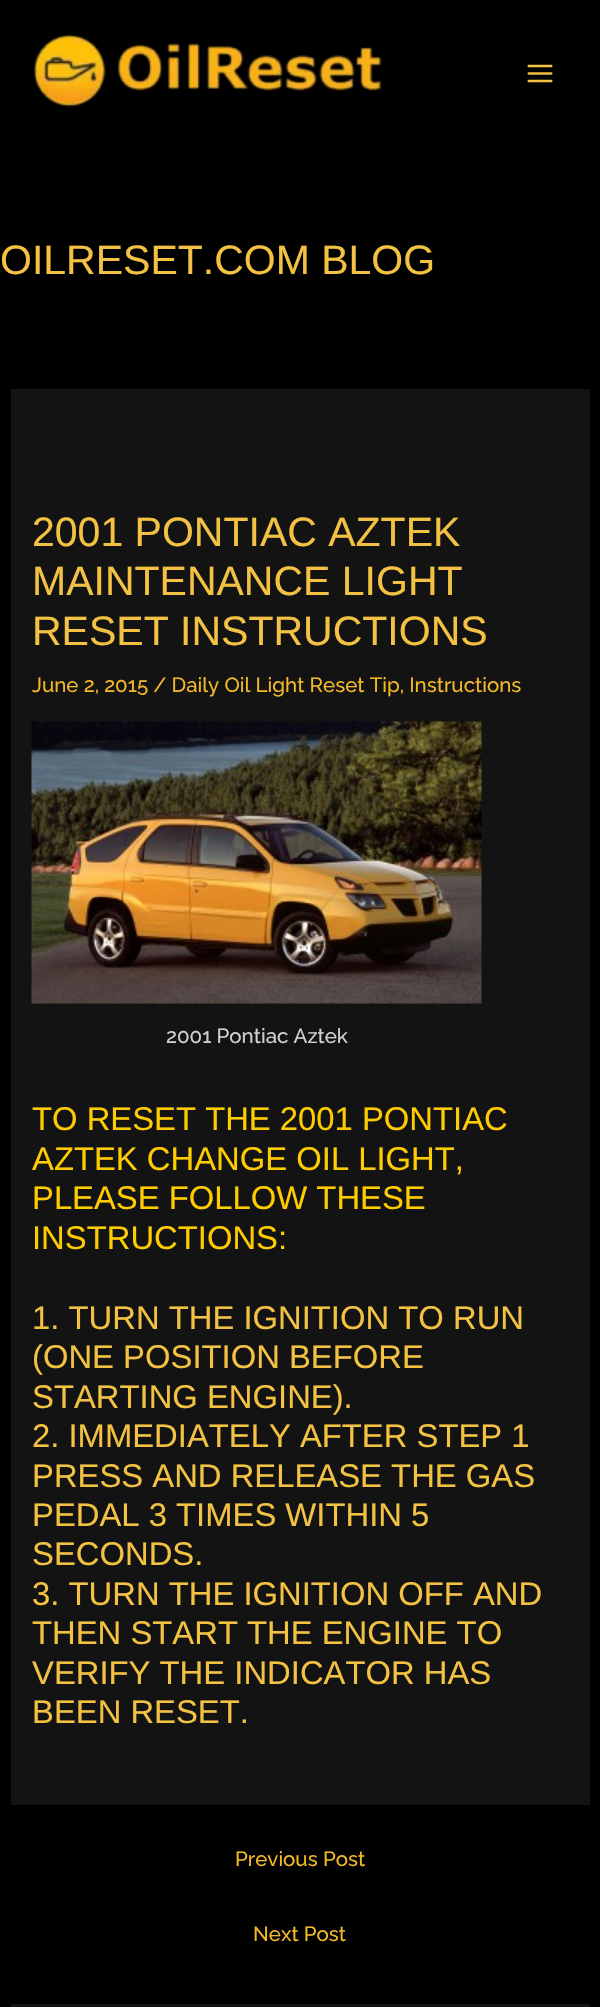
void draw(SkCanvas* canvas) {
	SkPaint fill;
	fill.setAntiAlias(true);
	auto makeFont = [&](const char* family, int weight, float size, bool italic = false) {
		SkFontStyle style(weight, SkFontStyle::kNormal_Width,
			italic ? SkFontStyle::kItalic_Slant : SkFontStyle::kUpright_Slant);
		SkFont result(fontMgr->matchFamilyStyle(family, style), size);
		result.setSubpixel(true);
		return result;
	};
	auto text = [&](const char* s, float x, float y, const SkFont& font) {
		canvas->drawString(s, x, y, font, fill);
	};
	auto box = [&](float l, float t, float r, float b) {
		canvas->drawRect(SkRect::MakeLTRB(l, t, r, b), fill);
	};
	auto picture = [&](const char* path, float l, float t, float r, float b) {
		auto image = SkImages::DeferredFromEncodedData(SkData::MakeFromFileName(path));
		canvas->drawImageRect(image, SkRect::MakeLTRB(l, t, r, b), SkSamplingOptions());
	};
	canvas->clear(0xFF000000);
	picture("image0.png", 34, 34, 382, 107);
	picture("image1.png", 527, 64, 553, 83);
	fill.setColor(0xFF131313);
	box(11, 389, 590, 1805);
	picture("image2.png", 31, 721, 482, 1004);
	box(11, 2004, 590, 2007);
	auto font1 = makeFont("Liberation Sans", 400, 41);
	fill.setColor(0xFFF3C242);
	text("OILRESET.COM BLOG", 0, 274, font1);
	text("2001 PONTIAC AZTEK", 32, 546, font1);
	text("MAINTENANCE LIGHT", 32, 595, font1);
	text("RESET INSTRUCTIONS", 32, 645, font1);
	auto font2 = makeFont("Raleway", 100, 20.5f);
	fill.setColor(0xFFF2B827);
	text("June 2, 2015 / Daily Oil Light Reset Tip, Instructions", 32, 692, font2);
	fill.setColor(0xFFD0D0D0);
	text("2001 Pontiac Aztek", 166, 1043, font2);
	auto font3 = makeFont("Liberation Sans", 400, 32.8f);
	fill.setColor(0xFFFFCC00);
	text("TO RESET THE 2001 PONTIAC", 32, 1130, font3);
	text("AZTEK CHANGE OIL LIGHT,", 32, 1170, font3);
	text("PLEASE FOLLOW THESE", 32, 1209, font3);
	text("INSTRUCTIONS:", 32, 1249, font3);
	fill.setColor(0xFFF3C242);
	text("1. TURN THE IGNITION TO RUN", 32, 1329, font3);
	text("(ONE POSITION BEFORE", 32, 1368, font3);
	text("STARTING ENGINE).", 32, 1408, font3);
	text("2. IMMEDIATELY AFTER STEP 1", 32, 1447, font3);
	text("PRESS AND RELEASE THE GAS", 32, 1487, font3);
	text("PEDAL 3 TIMES WITHIN 5", 32, 1526, font3);
	text("SECONDS.", 32, 1565, font3);
	text("3. TURN THE IGNITION OFF AND", 32, 1605, font3);
	text("THEN START THE ENGINE TO", 32, 1644, font3);
	text("VERIFY THE INDICATOR HAS", 32, 1684, font3);
	text("BEEN RESET.", 32, 1723, font3);
	fill.setColor(0xFFF2B827);
	text("Previous Post", 235, 1866, font2);
	text("Next Post", 253, 1941, font2);
}
